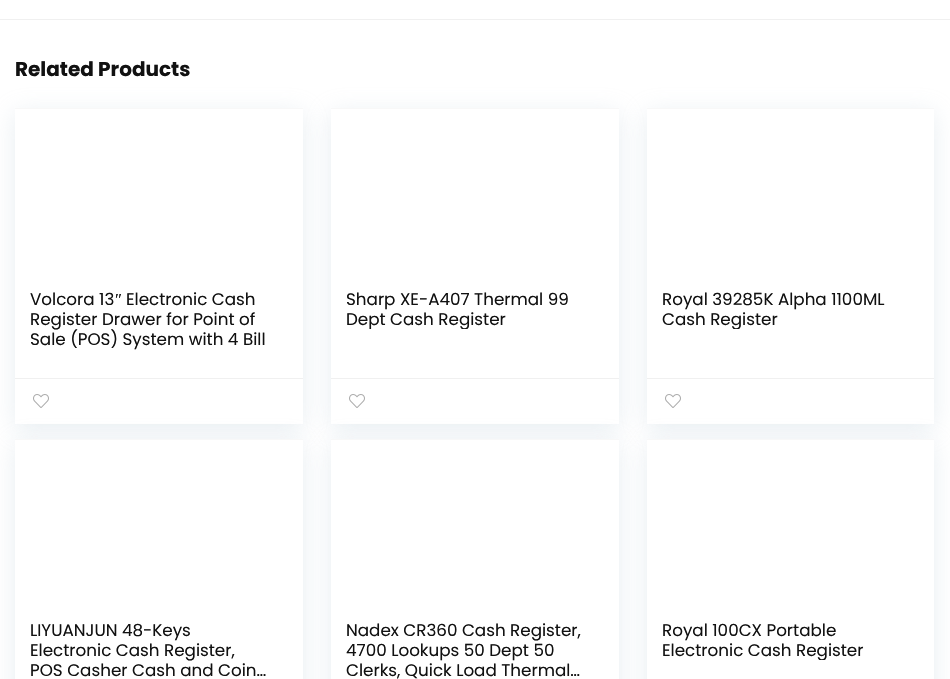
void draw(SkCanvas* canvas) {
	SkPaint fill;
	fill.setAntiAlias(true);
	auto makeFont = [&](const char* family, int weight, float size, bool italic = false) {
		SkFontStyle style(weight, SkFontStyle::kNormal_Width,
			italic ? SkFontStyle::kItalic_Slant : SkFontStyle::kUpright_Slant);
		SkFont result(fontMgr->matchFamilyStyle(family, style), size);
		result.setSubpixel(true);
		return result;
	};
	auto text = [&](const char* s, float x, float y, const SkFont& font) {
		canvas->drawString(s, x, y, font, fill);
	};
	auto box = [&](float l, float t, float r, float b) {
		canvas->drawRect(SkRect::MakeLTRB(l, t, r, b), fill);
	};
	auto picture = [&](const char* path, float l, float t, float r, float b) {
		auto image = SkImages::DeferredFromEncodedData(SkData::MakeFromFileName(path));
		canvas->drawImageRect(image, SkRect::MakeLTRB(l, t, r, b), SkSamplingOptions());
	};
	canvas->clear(0xFFFFFFFF);
	fill.setColor(0xFFF0F0F0);
	box(0, 19, 950, 20);
	canvas->save();
	canvas->clipPath(SkPathBuilder(SkPathFillType::kEvenOdd).moveTo(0, 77).lineTo(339, 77).lineTo(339, 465).lineTo(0, 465).close().moveTo(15, 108).lineTo(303, 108).lineTo(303, 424).lineTo(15, 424).close().detach(), true);
	fill.setColor(0x59BCCFDB);
	fill.setMaskFilter(SkMaskFilter::MakeBlur(kNormal_SkBlurStyle, 11.5f));
	canvas->drawRect(SkRect::MakeLTRB(15, 113, 303, 429), fill);
	fill.setMaskFilter(nullptr);
	canvas->restore();
	fill.setColor(0xFFF8F8F8);
	box(15, 108, 303, 109);
	fill.setColor(0xFFF0F0F0);
	box(15, 378, 303, 379);
	picture("image0.png", 33, 394, 49, 408);
	canvas->save();
	canvas->clipPath(SkPathBuilder(SkPathFillType::kEvenOdd).moveTo(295, 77).lineTo(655, 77).lineTo(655, 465).lineTo(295, 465).close().moveTo(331, 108).lineTo(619, 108).lineTo(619, 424).lineTo(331, 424).close().detach(), true);
	fill.setColor(0x59BCCFDB);
	fill.setMaskFilter(SkMaskFilter::MakeBlur(kNormal_SkBlurStyle, 11.5f));
	canvas->drawRect(SkRect::MakeLTRB(331, 113, 619, 429), fill);
	fill.setMaskFilter(nullptr);
	canvas->restore();
	fill.setColor(0xFFF8F8F8);
	box(331, 108, 619, 109);
	fill.setColor(0xFFF0F0F0);
	box(331, 378, 619, 379);
	picture("image0.png", 349, 394, 365, 408);
	canvas->save();
	canvas->clipPath(SkPathBuilder(SkPathFillType::kEvenOdd).moveTo(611, 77).lineTo(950, 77).lineTo(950, 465).lineTo(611, 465).close().moveTo(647, 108).lineTo(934, 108).lineTo(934, 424).lineTo(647, 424).close().detach(), true);
	fill.setColor(0x59BCCFDB);
	fill.setMaskFilter(SkMaskFilter::MakeBlur(kNormal_SkBlurStyle, 11.5f));
	canvas->drawRect(SkRect::MakeLTRB(647, 113, 934, 429), fill);
	fill.setMaskFilter(nullptr);
	canvas->restore();
	fill.setColor(0xFFF8F8F8);
	box(647, 108, 934, 109);
	fill.setColor(0xFFF0F0F0);
	box(647, 378, 934, 379);
	picture("image0.png", 665, 394, 681, 408);
	fill.setColor(0x59BCCFDB);
	fill.setMaskFilter(SkMaskFilter::MakeBlur(kNormal_SkBlurStyle, 11.5f));
	canvas->drawRect(SkRect::MakeLTRB(15, 444, 303, 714), fill);
	fill.setMaskFilter(nullptr);
	fill.setColor(0xFFFFFFFF);
	box(15, 440, 303, 679);
	fill.setColor(0xFFF8F8F8);
	box(15, 439, 303, 440);
	fill.setColor(0x59BCCFDB);
	fill.setMaskFilter(SkMaskFilter::MakeBlur(kNormal_SkBlurStyle, 11.5f));
	canvas->drawRect(SkRect::MakeLTRB(331, 444, 619, 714), fill);
	fill.setMaskFilter(nullptr);
	fill.setColor(0xFFFFFFFF);
	box(331, 440, 619, 679);
	fill.setColor(0xFFF8F8F8);
	box(331, 439, 619, 440);
	fill.setColor(0x59BCCFDB);
	fill.setMaskFilter(SkMaskFilter::MakeBlur(kNormal_SkBlurStyle, 11.5f));
	canvas->drawRect(SkRect::MakeLTRB(647, 444, 934, 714), fill);
	fill.setMaskFilter(nullptr);
	fill.setColor(0xFFFFFFFF);
	box(647, 440, 934, 679);
	fill.setColor(0xFFF8F8F8);
	box(647, 439, 934, 440);
	auto font1 = makeFont("Poppins", 700, 20);
	fill.setColor(0xFF111111);
	text("Related Products", 15, 76, font1);
	auto font2 = makeFont("Poppins", 400, 16.75f);
	text("Volcora 13", 30, 305, font2);
	auto font3 = makeFont("Liberation Serif", 400, 16.75f);
	text("″", 115, 305, font3);
	text("Electronic Cash", 126, 305, font2);
	text("Register Drawer for Point of", 30, 325, font2);
	text("Sale (POS) System with 4 Bill", 30, 345, font2);
	text("Sharp XE-A407 Thermal 99", 346, 305, font2);
	canvas->save();
	canvas->clipRect(SkRect::MakeLTRB(346, 289, 589, 329));
	text("Dept Cash Register", 346, 325, font2);
	canvas->restore();
	text("Royal 39285K Alpha 1100ML", 662, 305, font2);
	canvas->save();
	canvas->clipRect(SkRect::MakeLTRB(662, 289, 904, 329));
	text("Cash Register", 662, 325, font2);
	canvas->restore();
	text("LIYUANJUN 48-Keys", 30, 636, font2);
	text("Electronic Cash Register,", 30, 656, font2);
	text("POS Casher Cash and Coin…", 30, 676, font2);
	text("Nadex CR360 Cash Register,", 346, 636, font2);
	text("4700 Lookups 50 Dept 50", 346, 656, font2);
	text("Clerks, Quick Load Thermal…", 346, 676, font2);
	text("Royal 100CX Portable", 662, 636, font2);
	canvas->save();
	canvas->clipRect(SkRect::MakeLTRB(662, 620, 904, 660));
	text("Electronic Cash Register", 662, 656, font2);
	canvas->restore();
}
